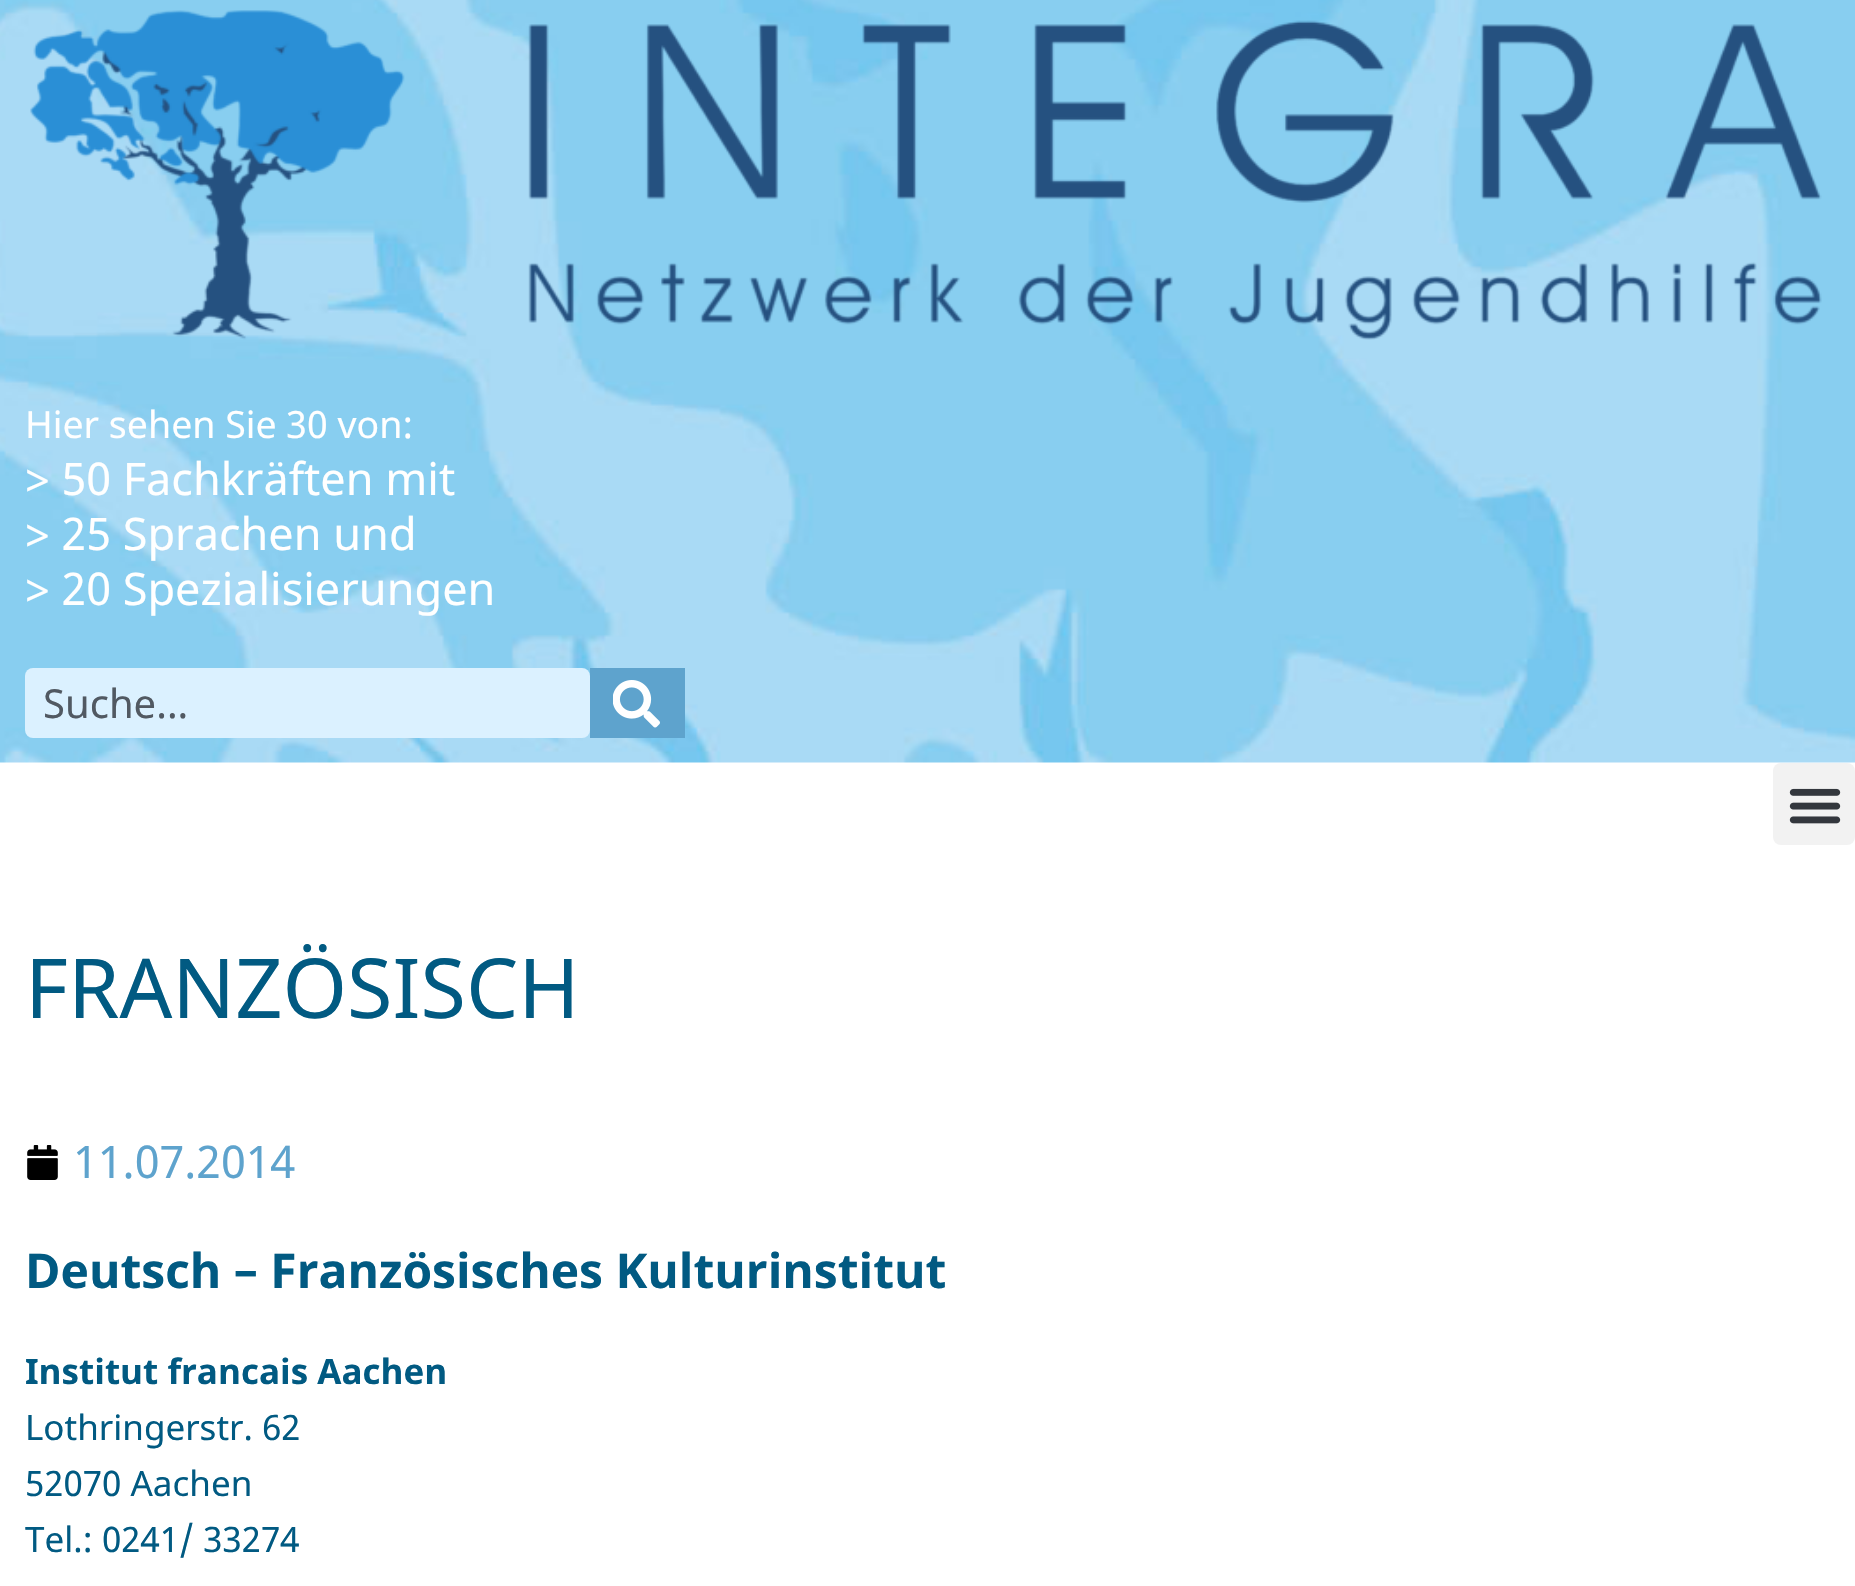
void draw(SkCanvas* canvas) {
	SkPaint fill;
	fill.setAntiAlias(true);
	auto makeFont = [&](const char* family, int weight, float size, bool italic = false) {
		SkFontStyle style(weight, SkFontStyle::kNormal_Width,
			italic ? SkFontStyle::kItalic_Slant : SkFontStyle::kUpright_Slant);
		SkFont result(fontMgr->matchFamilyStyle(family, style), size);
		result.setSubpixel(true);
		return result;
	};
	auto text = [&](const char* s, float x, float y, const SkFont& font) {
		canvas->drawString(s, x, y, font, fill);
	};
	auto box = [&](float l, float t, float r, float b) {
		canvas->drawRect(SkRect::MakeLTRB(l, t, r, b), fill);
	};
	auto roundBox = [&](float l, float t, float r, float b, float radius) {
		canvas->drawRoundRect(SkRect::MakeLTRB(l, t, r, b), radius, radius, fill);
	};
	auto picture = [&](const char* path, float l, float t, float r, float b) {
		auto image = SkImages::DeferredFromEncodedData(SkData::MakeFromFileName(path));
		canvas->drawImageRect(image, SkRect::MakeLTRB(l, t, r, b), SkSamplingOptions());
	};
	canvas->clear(0xFFFFFFFF);
	picture("image0.png", 0, 0, 1855, 763);
	picture("image1.png", 30, 10, 1822, 340);
	fill.setColor(0xFFDBF1FF);
	roundBox(25, 668, 590, 738, 8);
	fill.setColor(0xFF5EA3CD);
	box(590, 668, 685, 738);
	picture("image2.png", 613, 680, 660, 728);
	fill.setColor(0xFFF2F2F2);
	roundBox(1773, 763, 1855, 845, 8);
	picture("image3.png", 1789, 788, 1841, 824);
	picture("image4.png", 27, 1145, 58, 1180);
	auto font1 = makeFont("Noto Sans", 400, 37.5f);
	fill.setColor(0xFFFFFFFF);
	text("Hier sehen Sie 30 von:", 25, 438, font1);
	auto font2 = makeFont("Noto Sans", 400, 45);
	text("> 50 Fachkräften mit", 25, 495, font2);
	text("> 25 Sprachen und", 25, 550, font2);
	text("> 20 Spezialisierungen", 25, 605, font2);
	auto font3 = makeFont("Noto Sans", 400, 40);
	fill.setColor(0xFF515962);
	text("Suche...", 43, 718, font3);
	auto font4 = makeFont("Noto Sans", 400, 82.75f);
	fill.setColor(0xFF015A82);
	text("FRANZÖSISCH", 25, 1018, font4);
	fill.setColor(0xFF5EA3CD);
	text("11.07.2014", 73, 1178, font2);
	auto font5 = makeFont("Noto Sans", 700, 48);
	fill.setColor(0xFF015A82);
	text("Deutsch – Französisches Kulturinstitut", 25, 1288, font5);
	auto font6 = makeFont("Noto Sans", 700, 35);
	text("Institut francais Aachen", 25, 1384, font6);
	auto font7 = makeFont("Noto Sans", 400, 35);
	text("Lothringerstr. 62", 25, 1440, font7);
	text("52070 Aachen", 25, 1496, font7);
	text("Tel.: 0241/ 33274", 25, 1552, font7);
}
